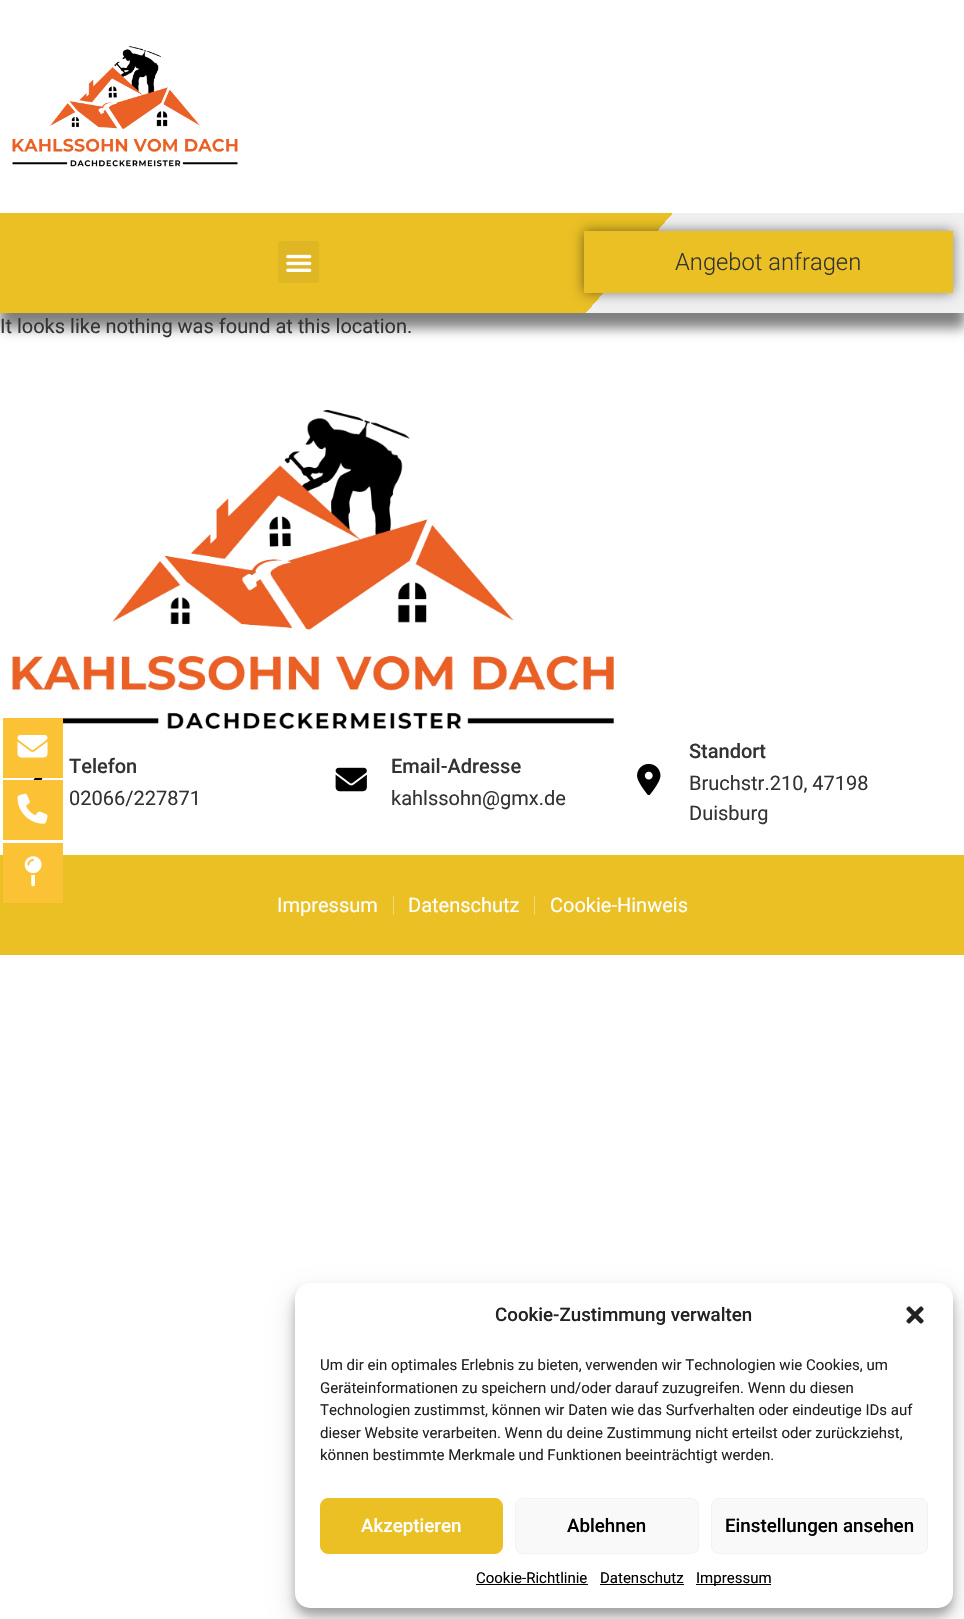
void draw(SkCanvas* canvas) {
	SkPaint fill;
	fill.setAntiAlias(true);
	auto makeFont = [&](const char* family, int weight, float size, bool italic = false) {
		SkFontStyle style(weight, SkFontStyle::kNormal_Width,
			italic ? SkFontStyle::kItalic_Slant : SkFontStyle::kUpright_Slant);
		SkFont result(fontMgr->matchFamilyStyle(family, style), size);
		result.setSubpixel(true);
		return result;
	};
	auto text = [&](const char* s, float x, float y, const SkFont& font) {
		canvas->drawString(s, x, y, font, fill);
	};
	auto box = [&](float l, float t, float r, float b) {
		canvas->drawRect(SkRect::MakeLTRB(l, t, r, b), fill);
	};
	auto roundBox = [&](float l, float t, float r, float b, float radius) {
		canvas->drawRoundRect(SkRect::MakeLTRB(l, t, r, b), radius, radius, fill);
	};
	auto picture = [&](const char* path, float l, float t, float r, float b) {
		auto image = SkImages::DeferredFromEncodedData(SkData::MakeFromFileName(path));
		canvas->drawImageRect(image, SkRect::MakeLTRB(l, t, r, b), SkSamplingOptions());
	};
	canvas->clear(0xFFFFFFFF);
	picture("image0.png", 12, 46, 238, 167);
	fill.setColor(0x80000000);
	fill.setMaskFilter(SkMaskFilter::MakeBlur(kNormal_SkBlurStyle, 6));
	canvas->drawRect(SkRect::MakeLTRB(0, 228, 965, 328), fill);
	fill.setMaskFilter(nullptr);
	{
		const SkColor colors[] = {0xFFF0F0F0, 0xFFEBC025};
		const float stops[] = {0.36f, 0.36f};
		const SkPoint ends[] = {{782, 523}, {183, 2.1f}};
		fill.setShader(SkGradientShader::MakeLinear(ends, colors, stops, 2, SkTileMode::kClamp));
		fill.setAlpha(255);
	}
	box(0, 213, 964, 313);
	fill.setShader(nullptr);
	fill.setColor(0xFFDFB623);
	roundBox(278, 241, 319, 283, 4);
	picture("image1.png", 286, 254, 312, 272);
	fill.setColor(0x80000000);
	fill.setMaskFilter(SkMaskFilter::MakeBlur(kNormal_SkBlurStyle, 6));
	canvas->drawRect(SkRect::MakeLTRB(584, 231, 953, 293), fill);
	fill.setMaskFilter(nullptr);
	fill.setColor(0xFFEBC025);
	box(584, 231, 953, 293);
	picture("image5.png", 12, 410, 614, 729);
	fill.setColor(0xFFFCC236);
	box(3, 718, 63, 778);
	picture("image2.png", 17, 735, 48, 758);
	box(3, 780, 63, 840);
	picture("image3.png", 17, 793, 48, 824);
	fill.setColor(0xFFEBC025);
	box(0, 855, 964, 955);
	fill.setColor(0xFFFCC236);
	box(3, 843, 63, 903);
	picture("image4.png", 24, 856, 42, 887);
	picture("image6.png", 33, 778, 43, 780);
	picture("image7.png", 335, 767, 367, 792);
	picture("image8.png", 637, 763, 661, 796);
	fill.setColor(0xFFF3D97C);
	box(393, 896, 394, 915);
	box(534, 896, 535, 915);
	fill.setColor(0x3B000000);
	fill.setMaskFilter(SkMaskFilter::MakeBlur(kNormal_SkBlurStyle, 4));
	canvas->drawRoundRect(SkRect::MakeLTRB(295, 1290, 953, 1615), 15, 15, fill);
	fill.setMaskFilter(nullptr);
	fill.setColor(0x30000000);
	fill.setMaskFilter(SkMaskFilter::MakeBlur(kNormal_SkBlurStyle, 12.5f));
	canvas->drawRoundRect(SkRect::MakeLTRB(295, 1295, 953, 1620), 15, 15, fill);
	fill.setMaskFilter(nullptr);
	fill.setColor(0xFFFFFFFF);
	roundBox(295, 1283, 953, 1608, 15);
	picture("image9.png", 906, 1306, 924, 1324);
	fill.setColor(0xFFEBC025);
	canvas->drawRoundRect(SkRect::MakeLTRB(320.5f, 1498.5f, 502.5f, 1553.5f), 7.5f, 7.5f, fill);
	fill.setStyle(SkPaint::kStroke_Style);
	fill.setStrokeWidth(1);
	canvas->drawRoundRect(SkRect::MakeLTRB(320.5f, 1498.5f, 502.5f, 1553.5f), 7.5f, 7.5f, fill);
	fill.setStyle(SkPaint::kFill_Style);
	fill.setColor(0xFFF9F9F9);
	canvas->drawRoundRect(SkRect::MakeLTRB(515.5f, 1498.5f, 698.5f, 1553.5f), 7.5f, 7.5f, fill);
	fill.setStyle(SkPaint::kStroke_Style);
	fill.setColor(0xFFF2F2F2);
	canvas->drawRoundRect(SkRect::MakeLTRB(515.5f, 1498.5f, 698.5f, 1553.5f), 7.5f, 7.5f, fill);
	fill.setStyle(SkPaint::kFill_Style);
	fill.setColor(0xFFF9F9F9);
	canvas->drawRoundRect(SkRect::MakeLTRB(711.5f, 1498.5f, 927.5f, 1553.5f), 7.5f, 7.5f, fill);
	fill.setStyle(SkPaint::kStroke_Style);
	fill.setColor(0xFFF2F2F2);
	canvas->drawRoundRect(SkRect::MakeLTRB(711.5f, 1498.5f, 927.5f, 1553.5f), 7.5f, 7.5f, fill);
	fill.setStyle(SkPaint::kFill_Style);
	fill.setColor(0xFF000000);
	box(476, 1584, 588, 1585);
	box(600, 1584, 684, 1585);
	box(696, 1584, 771, 1585);
	auto font1 = makeFont("Roboto", 300, 23.75f);
	fill.setColor(0xFF333333);
	text("Angebot anfragen", 675, 270, font1);
	auto font2 = makeFont("Roboto", 400, 20);
	text("It looks like nothing was found at this location.", 0, 333, font2);
	auto font3 = makeFont("Roboto", 500, 20);
	text("Telefon", 69, 773, font3);
	text("02066/227871", 69, 805, font2);
	text("Email-Adresse", 391, 773, font3);
	text("kahlssohn@gmx.de", 391, 805, font2);
	text("Standort", 689, 758, font3);
	text("Bruchstr.210, 47198", 689, 790, font2);
	text("Duisburg", 689, 820, font2);
	fill.setColor(0xFFFFFFFF);
	text("Impressum", 277, 912, font2);
	text("Datenschutz", 408, 912, font2);
	text("Cookie-Hinweis", 550, 912, font2);
	auto font4 = makeFont("Roboto", 500, 18.75f);
	fill.setColor(0xFF222222);
	text("Cookie-Zustimmung verwalten", 495, 1321, font4);
	auto font5 = makeFont("Roboto", 400, 15);
	text("Um dir ein optimales Erlebnis zu bieten, verwenden wir Technologien wie Cookies, um", 320, 1370, font5);
	text("Geräteinformationen zu speichern und/oder darauf zuzugreifen. Wenn du diesen", 320, 1393, font5);
	text("Technologien zustimmst, können wir Daten wie das Surfverhalten oder eindeutige IDs auf", 320, 1415, font5);
	text("dieser Website verarbeiten. Wenn du deine Zustimmung nicht erteilst oder zurückziehst,", 320, 1438, font5);
	text("können bestimmte Merkmale und Funktionen beeinträchtigt werden.", 320, 1460, font5);
	fill.setColor(0xFFFFFFFF);
	text("Akzeptieren", 361, 1532, font4);
	fill.setColor(0xFF000000);
	text("Ablehnen", 567, 1532, font4);
	text("Einstellungen ansehen", 725, 1532, font4);
	text("Cookie-Richtlinie", 476, 1583, font5);
	text("Datenschutz", 600, 1583, font5);
	text("Impressum", 696, 1583, font5);
}
